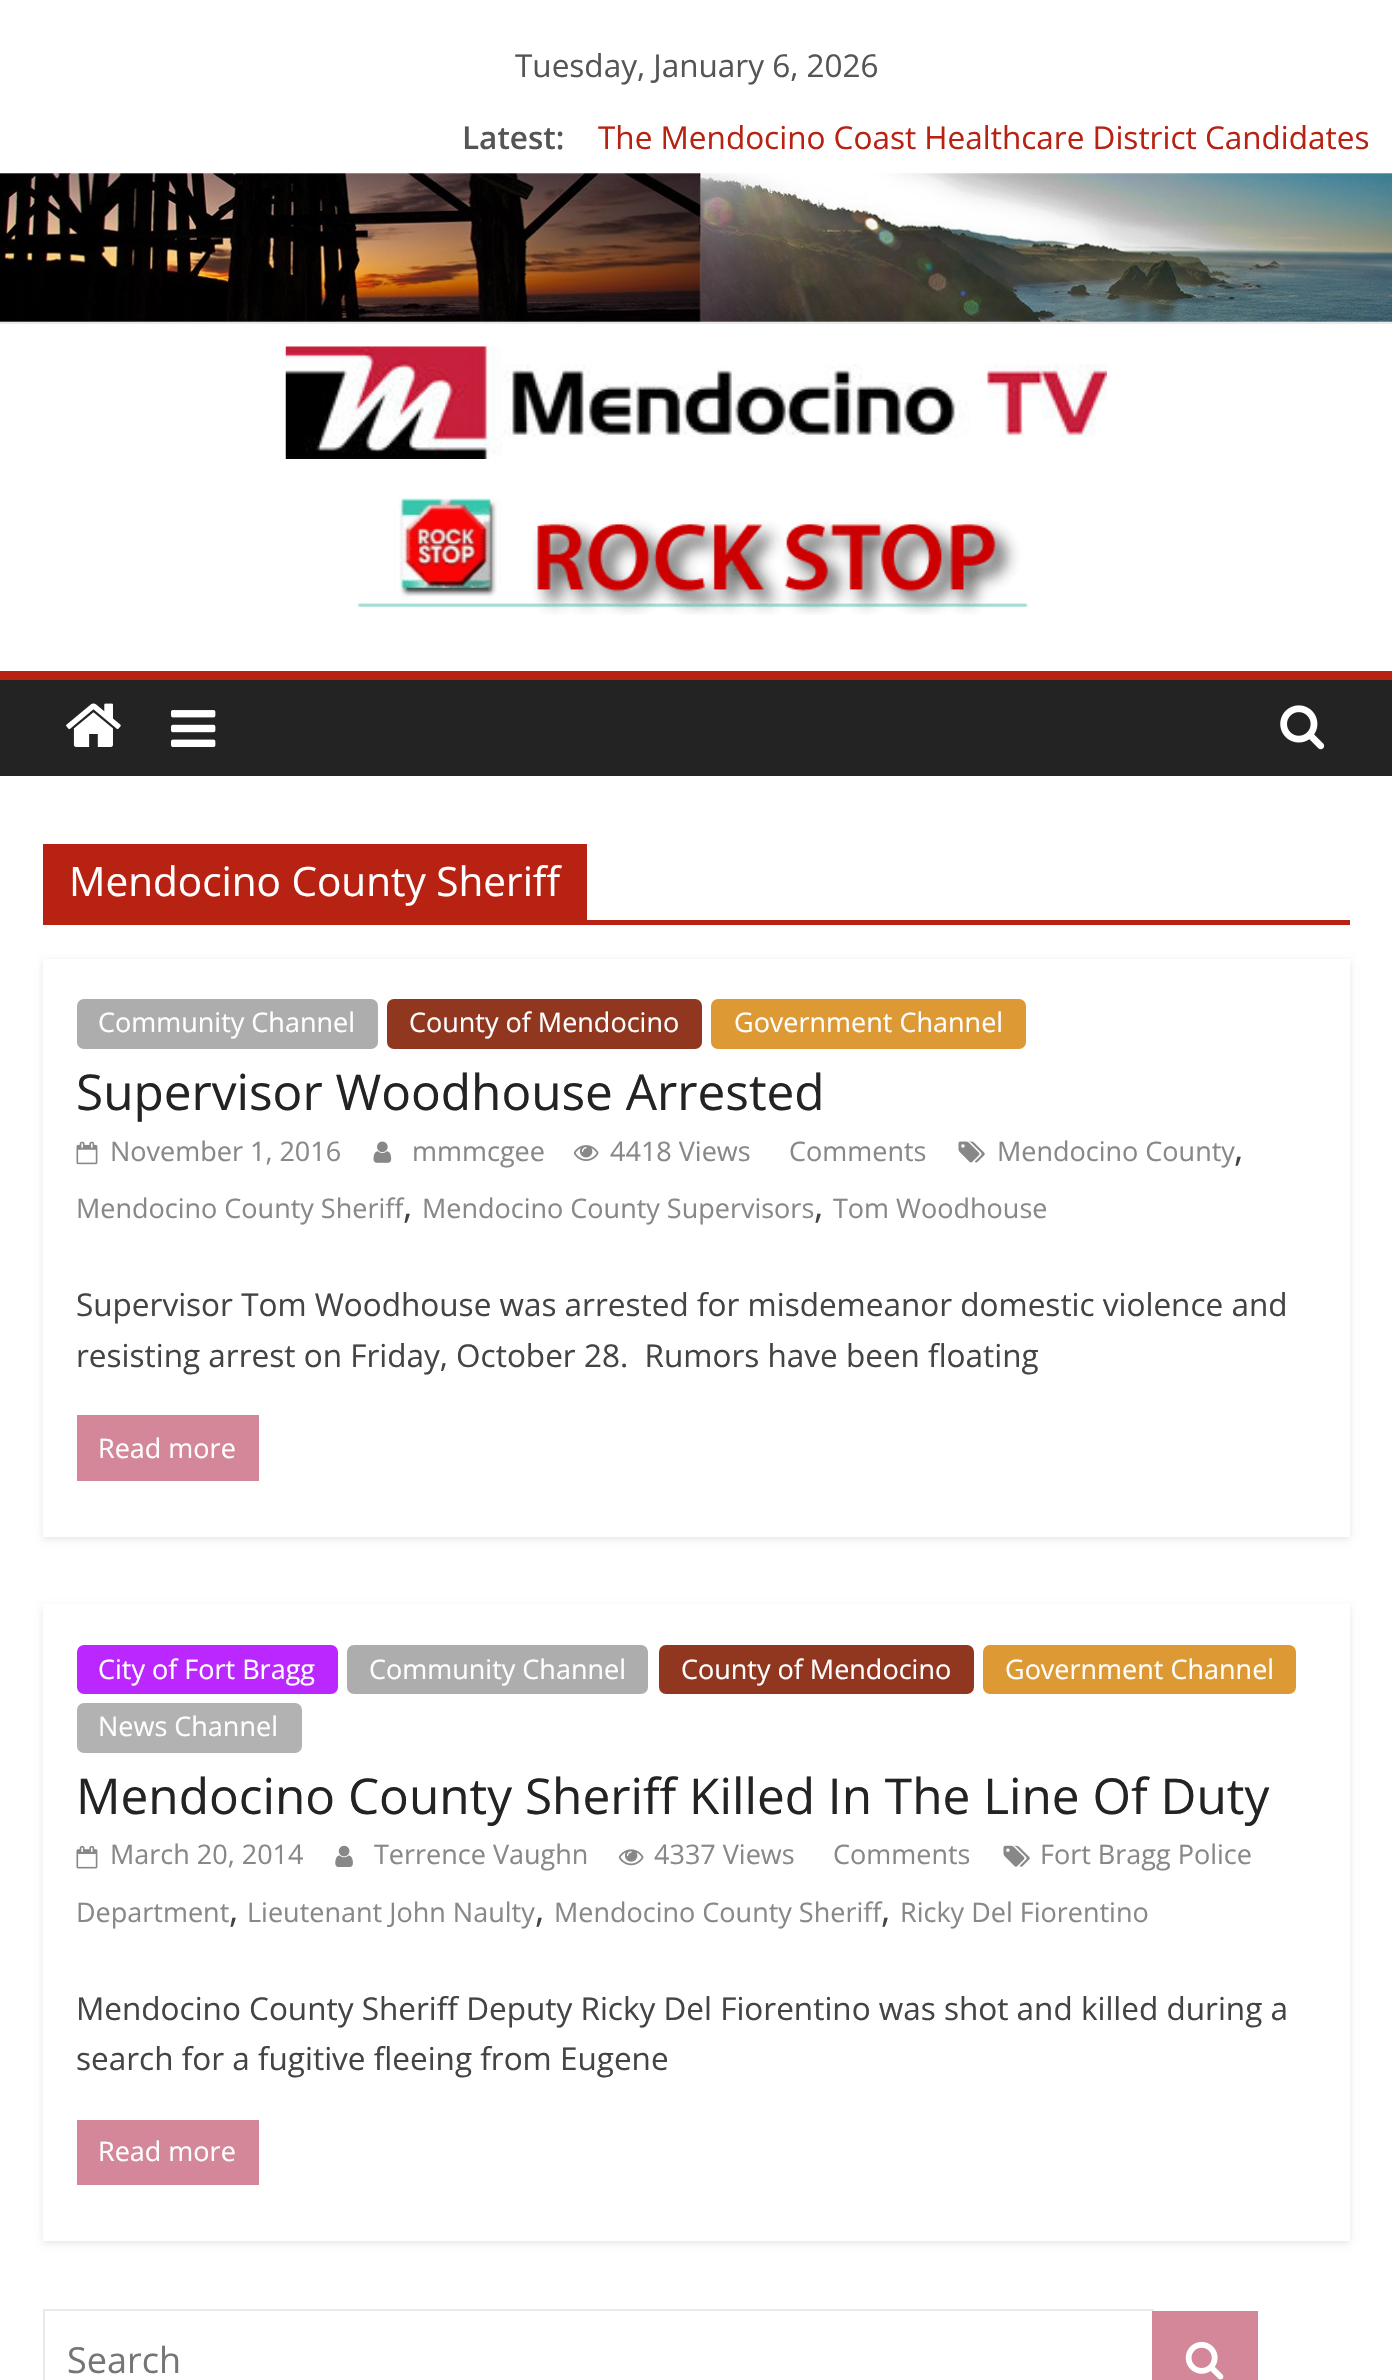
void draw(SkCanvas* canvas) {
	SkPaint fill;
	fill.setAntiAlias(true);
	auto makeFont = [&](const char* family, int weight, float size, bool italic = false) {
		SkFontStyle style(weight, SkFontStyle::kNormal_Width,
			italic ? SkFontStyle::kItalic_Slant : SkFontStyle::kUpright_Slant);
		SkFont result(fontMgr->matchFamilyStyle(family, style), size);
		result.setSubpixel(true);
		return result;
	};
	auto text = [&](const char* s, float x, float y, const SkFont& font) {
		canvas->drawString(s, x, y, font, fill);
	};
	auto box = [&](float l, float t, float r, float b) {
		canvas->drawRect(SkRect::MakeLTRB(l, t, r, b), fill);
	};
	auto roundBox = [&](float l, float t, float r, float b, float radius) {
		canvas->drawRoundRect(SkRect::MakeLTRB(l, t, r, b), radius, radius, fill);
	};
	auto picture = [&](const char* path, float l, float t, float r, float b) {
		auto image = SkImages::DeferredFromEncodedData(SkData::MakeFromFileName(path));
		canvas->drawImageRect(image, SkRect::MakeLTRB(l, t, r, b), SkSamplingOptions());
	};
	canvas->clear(0xFFFFFFFF);
	picture("image0.png", 0, 173, 1392, 322);
	fill.setColor(0xFFEAEAEA);
	box(0, 322, 1392, 324);
	picture("image1.png", 285, 346, 1107, 459);
	picture("image2.png", 357, 498, 1029, 615);
	fill.setColor(0xFF232323);
	box(0, 680, 1392, 776);
	fill.setColor(0xFFB72212);
	box(0, 671, 1392, 680);
	picture("image3.png", 66, 703, 121, 747);
	picture("image4.png", 171, 710, 216, 747);
	picture("image5.png", 1280, 705, 1325, 750);
	box(43, 920, 1350, 925);
	box(43, 844, 587, 920);
	canvas->save();
	canvas->clipPath(SkPathBuilder(SkPathFillType::kEvenOdd).moveTo(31, 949).lineTo(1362, 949).lineTo(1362, 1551).lineTo(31, 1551).close().moveTo(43, 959).lineTo(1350, 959).lineTo(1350, 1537).lineTo(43, 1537).close().detach(), true);
	fill.setColor(0x1A000000);
	fill.setMaskFilter(SkMaskFilter::MakeBlur(kNormal_SkBlurStyle, 3.5f));
	canvas->drawRect(SkRect::MakeLTRB(43, 961, 1350, 1539), fill);
	fill.setMaskFilter(nullptr);
	canvas->restore();
	fill.setColor(0xFFADADAD);
	roundBox(77, 999, 378, 1049, 7);
	fill.setColor(0xFF91361F);
	roundBox(387, 999, 702, 1049, 7);
	fill.setColor(0xFFDD9933);
	roundBox(711, 999, 1026, 1049, 7);
	picture("image6.png", 958, 1141, 985, 1163);
	picture("image7.png", 76, 1141, 98, 1165);
	picture("image8.png", 373, 1141, 392, 1163);
	picture("image9.png", 573, 1145, 599, 1161);
	fill.setColor(0xFFD38799);
	box(77, 1415, 259, 1481);
	canvas->save();
	canvas->clipPath(SkPathBuilder(SkPathFillType::kEvenOdd).moveTo(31, 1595).lineTo(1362, 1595).lineTo(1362, 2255).lineTo(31, 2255).close().moveTo(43, 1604).lineTo(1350, 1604).lineTo(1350, 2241).lineTo(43, 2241).close().detach(), true);
	fill.setColor(0x1A000000);
	fill.setMaskFilter(SkMaskFilter::MakeBlur(kNormal_SkBlurStyle, 3.5f));
	canvas->drawRect(SkRect::MakeLTRB(43, 1607, 1350, 2243), fill);
	fill.setMaskFilter(nullptr);
	canvas->restore();
	fill.setColor(0xFFBB28FF);
	roundBox(77, 1645, 338, 1694, 7);
	fill.setColor(0xFFADADAD);
	roundBox(347, 1645, 648, 1694, 7);
	fill.setColor(0xFF91361F);
	roundBox(659, 1645, 974, 1694, 7);
	fill.setColor(0xFFDD9933);
	roundBox(983, 1645, 1296, 1694, 7);
	fill.setColor(0xFFB2B2B2);
	roundBox(77, 1703, 302, 1753, 7);
	picture("image10.png", 1003, 1845, 1030, 1867);
	picture("image11.png", 76, 1845, 98, 1869);
	picture("image12.png", 335, 1845, 353, 1867);
	picture("image13.png", 618, 1849, 644, 1866);
	fill.setColor(0xFFD38799);
	box(77, 2120, 259, 2185);
	fill.setStyle(SkPaint::kStroke_Style);
	fill.setStrokeWidth(2);
	fill.setColor(0xFFEAEAEA);
	canvas->drawRect(SkRect::MakeLTRB(44, 2310, 1153, 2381), fill);
	fill.setStyle(SkPaint::kFill_Style);
	fill.setColor(0xFFD38799);
	box(1152, 2311, 1258, 2380);
	picture("image14.png", 1185, 2341, 1224, 2380);
	auto font1 = makeFont("Open Sans", 400, 31.5f);
	fill.setColor(0xFF555555);
	text("Tuesday, January 6, 2026", 515, 77, font1);
	auto font2 = makeFont("Open Sans", 600, 31.5f);
	text("Latest:", 462, 149, font2);
	fill.setColor(0xFFB72212);
	text("The Mendocino Coast Healthcare District Candidates", 598, 149, font1);
	auto font3 = makeFont("Open Sans", 400, 40.5f);
	fill.setColor(0xFFFFFFFF);
	text("Mendocino County Sheriff", 69, 896, font3);
	auto font4 = makeFont("Open Sans", 400, 27);
	text("Community Channel", 98, 1032, font4);
	text("County of Mendocino", 409, 1032, font4);
	text("Government Channel", 734, 1032, font4);
	auto font5 = makeFont("Open Sans", 400, 49.5f);
	fill.setColor(0xFF232323);
	text("Supervisor Woodhouse Arrested", 76, 1110, font5);
	fill.setColor(0xFF888888);
	text("Mendocino County", 997, 1161, font4);
	auto font6 = makeFont("Open Sans", 400, 36);
	fill.setColor(0xFF444444);
	text(",", 1234, 1161, font6);
	fill.setColor(0xFF888888);
	text("Mendocino County Sheriff", 76, 1218, font4);
	fill.setColor(0xFF444444);
	text(",", 403, 1218, font6);
	fill.setColor(0xFF888888);
	text("Mendocino County Supervisors", 422, 1218, font4);
	fill.setColor(0xFF444444);
	text(",", 814, 1218, font6);
	fill.setColor(0xFF888888);
	text("Tom Woodhouse", 833, 1218, font4);
	text("November 1, 2016", 110, 1161, font4);
	text("mmmcgee", 412, 1161, font4);
	text("4418 Views", 610, 1161, font4);
	text("Comments", 789, 1161, font4);
	fill.setColor(0xFF444444);
	text("Supervisor Tom Woodhouse was arrested for misdemeanor domestic violence and", 76, 1316, font1);
	text("resisting arrest on Friday, October 28.  Rumors have been floating", 76, 1367, font1);
	fill.setColor(0xFFFFFFFF);
	text("Read more", 98, 1458, font4);
	text("City of Fort Bragg", 98, 1679, font4);
	text("Community Channel", 369, 1679, font4);
	text("County of Mendocino", 681, 1679, font4);
	text("Government Channel", 1005, 1679, font4);
	text("News Channel", 98, 1736, font4);
	fill.setColor(0xFF232323);
	text("Mendocino County Sheriff Killed In The Line Of Duty", 76, 1814, font5);
	fill.setColor(0xFF888888);
	text("Fort Bragg Police", 1040, 1864, font4);
	text("Department", 76, 1922, font4);
	fill.setColor(0xFF444444);
	text(",", 229, 1922, font6);
	fill.setColor(0xFF888888);
	text("Lieutenant John Naulty", 247, 1922, font4);
	fill.setColor(0xFF444444);
	text(",", 535, 1922, font6);
	fill.setColor(0xFF888888);
	text("Mendocino County Sheriff", 554, 1922, font4);
	fill.setColor(0xFF444444);
	text(",", 881, 1922, font6);
	fill.setColor(0xFF888888);
	text("Ricky Del Fiorentino", 900, 1922, font4);
	text("March 20, 2014", 110, 1864, font4);
	text("Terrence Vaughn", 374, 1864, font4);
	text("4337 Views", 654, 1864, font4);
	text("Comments", 833, 1864, font4);
	fill.setColor(0xFF444444);
	text("Mendocino County Sheriff Deputy Ricky Del Fiorentino was shot and killed during a", 76, 2020, font1);
	text("search for a fugitive fleeing from Eugene", 76, 2070, font1);
	fill.setColor(0xFFFFFFFF);
	text("Read more", 98, 2161, font4);
	fill.setColor(0xFF757575);
	text("Search", 67, 2373, font6);
}
